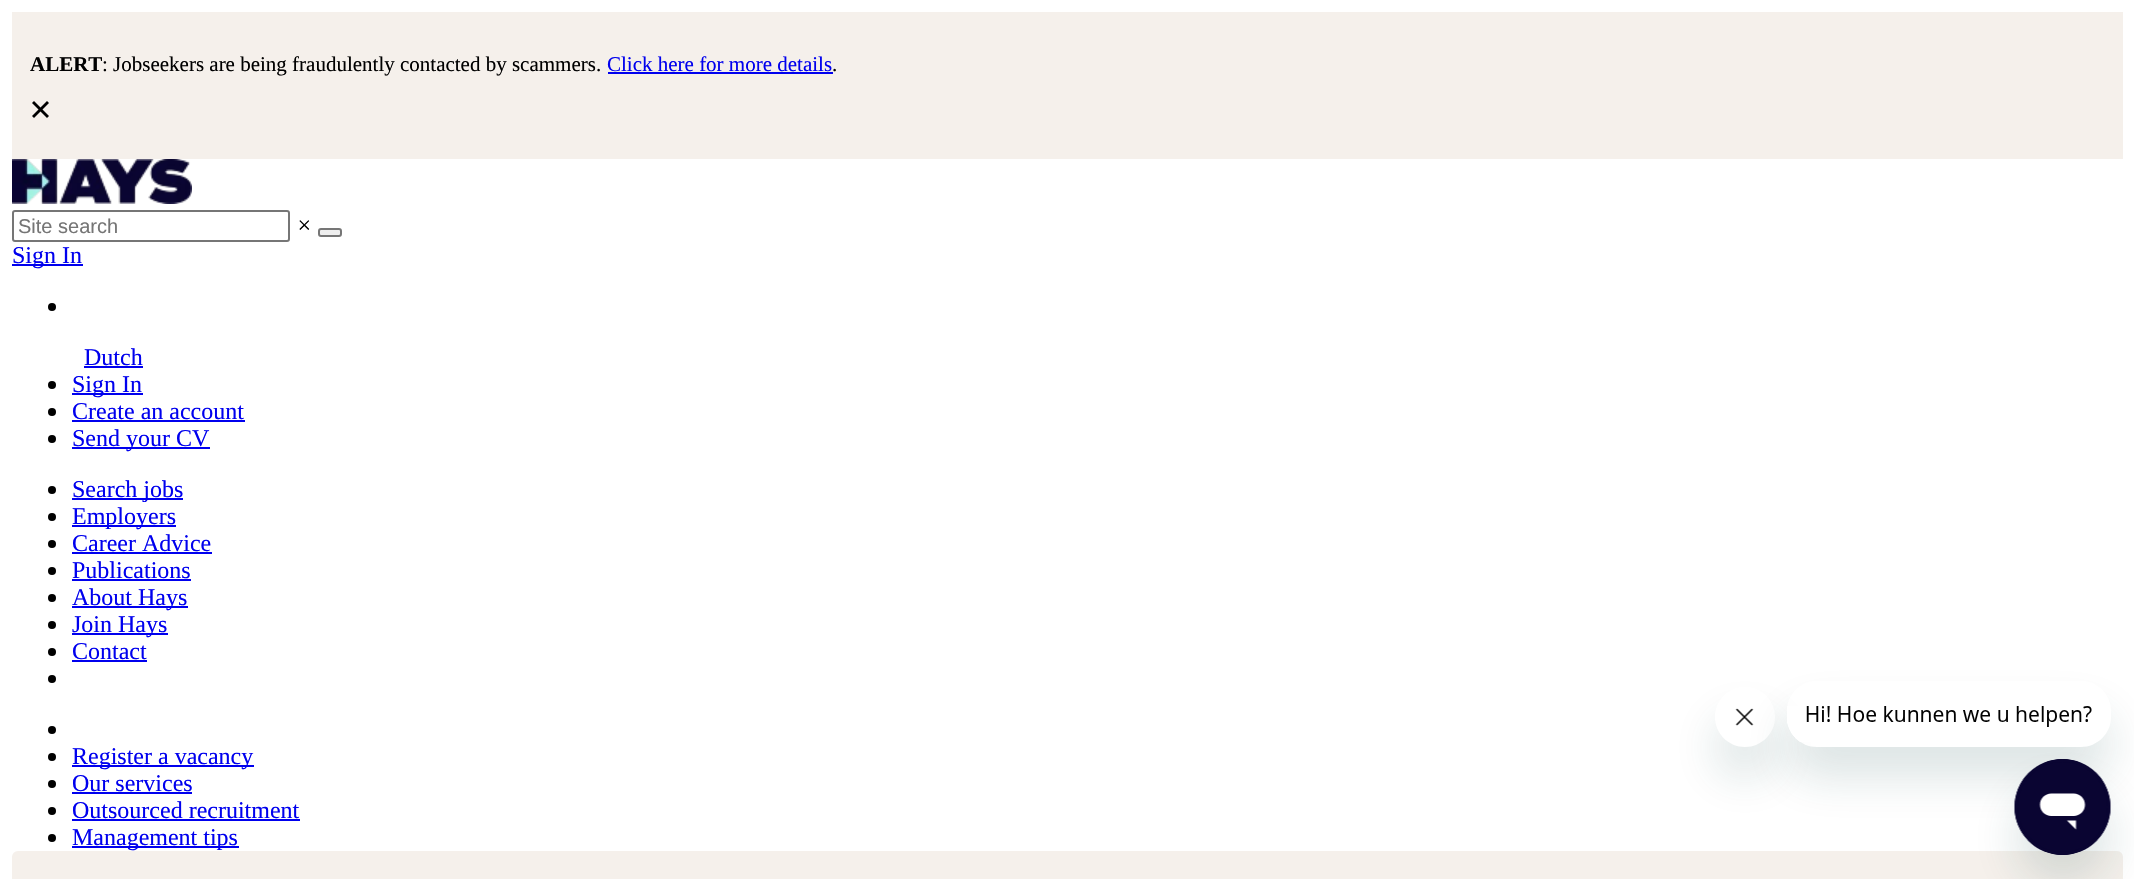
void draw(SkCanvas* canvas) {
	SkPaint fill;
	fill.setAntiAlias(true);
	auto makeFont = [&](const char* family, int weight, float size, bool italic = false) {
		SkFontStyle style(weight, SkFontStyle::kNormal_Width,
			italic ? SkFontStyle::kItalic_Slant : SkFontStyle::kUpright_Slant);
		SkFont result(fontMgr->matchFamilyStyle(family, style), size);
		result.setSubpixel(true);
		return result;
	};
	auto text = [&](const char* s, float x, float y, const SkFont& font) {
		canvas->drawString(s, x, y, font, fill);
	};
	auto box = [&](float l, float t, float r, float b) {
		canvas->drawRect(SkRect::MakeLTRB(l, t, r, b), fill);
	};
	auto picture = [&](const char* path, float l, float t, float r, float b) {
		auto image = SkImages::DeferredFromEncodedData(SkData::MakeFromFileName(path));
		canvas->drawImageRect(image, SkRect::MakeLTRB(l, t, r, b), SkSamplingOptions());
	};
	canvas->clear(0xFFFFFFFF);
	fill.setColor(0xFFF5F0EB);
	box(12, 12, 2123, 159);
	fill.setColor(0xFF0000EE);
	box(608, 72, 833, 74);
	fill.setColor(0xFF000000);
	canvas->drawPath(SkPathBuilder().moveTo(34, 101).lineTo(49, 116).lineTo(47, 118).lineTo(32, 103).close().detach(), fill);
	canvas->drawPath(SkPathBuilder().moveTo(32, 116).lineTo(47, 101).lineTo(49, 103).lineTo(34, 118).close().detach(), fill);
	picture("image0.png", 12, 159, 192, 204);
	fill.setStyle(SkPaint::kStroke_Style);
	fill.setStrokeWidth(2);
	fill.setColor(0xFF767676);
	canvas->drawRoundRect(SkRect::MakeLTRB(13, 211, 289, 241), 2, 2, fill);
	fill.setStyle(SkPaint::kFill_Style);
	fill.setColor(0xFFEFEFEF);
	canvas->drawRoundRect(SkRect::MakeLTRB(319, 229, 341, 236), 2, 2, fill);
	fill.setStyle(SkPaint::kStroke_Style);
	fill.setColor(0xFF767676);
	canvas->drawRoundRect(SkRect::MakeLTRB(319, 229, 341, 236), 2, 2, fill);
	fill.setStyle(SkPaint::kFill_Style);
	fill.setColor(0xFF0000EE);
	box(12, 264, 83, 266);
	fill.setColor(0xFF000000);
	canvas->drawCircle(52, 307, 4, fill);
	fill.setColor(0xFF0000EE);
	box(84, 366, 143, 368);
	fill.setColor(0xFF000000);
	canvas->drawCircle(52, 385, 4, fill);
	fill.setColor(0xFF0000EE);
	box(72, 393, 143, 395);
	fill.setColor(0xFF000000);
	canvas->drawCircle(52, 412, 4, fill);
	fill.setColor(0xFF0000EE);
	box(72, 420, 245, 422);
	fill.setColor(0xFF000000);
	canvas->drawCircle(52, 439, 4, fill);
	fill.setColor(0xFF0000EE);
	box(72, 447, 210, 449);
	fill.setColor(0xFF000000);
	canvas->drawCircle(52, 490, 4, fill);
	fill.setColor(0xFF0000EE);
	box(72, 498, 183, 500);
	fill.setColor(0xFF000000);
	canvas->drawCircle(52, 517, 4, fill);
	fill.setColor(0xFF0000EE);
	box(72, 525, 176, 527);
	fill.setColor(0xFF000000);
	canvas->drawCircle(52, 544, 4, fill);
	fill.setColor(0xFF0000EE);
	box(72, 552, 212, 554);
	fill.setColor(0xFF000000);
	canvas->drawCircle(52, 571, 4, fill);
	fill.setColor(0xFF0000EE);
	box(72, 579, 191, 581);
	fill.setColor(0xFF000000);
	canvas->drawCircle(52, 598, 4, fill);
	fill.setColor(0xFF0000EE);
	box(72, 606, 188, 608);
	fill.setColor(0xFF000000);
	canvas->drawCircle(52, 625, 4, fill);
	fill.setColor(0xFF0000EE);
	box(72, 633, 168, 635);
	fill.setColor(0xFF000000);
	canvas->drawCircle(52, 652, 4, fill);
	fill.setColor(0xFF0000EE);
	box(72, 660, 147, 662);
	fill.setColor(0xFF000000);
	canvas->drawCircle(52, 679, 4, fill);
	canvas->drawCircle(52, 730, 4, fill);
	canvas->drawCircle(52, 757, 4, fill);
	fill.setColor(0xFF0000EE);
	box(72, 765, 254, 767);
	fill.setColor(0xFF000000);
	canvas->drawCircle(52, 784, 4, fill);
	fill.setColor(0xFF0000EE);
	box(72, 792, 192, 794);
	fill.setColor(0xFF000000);
	canvas->drawCircle(52, 811, 4, fill);
	fill.setColor(0xFF0000EE);
	box(72, 819, 300, 821);
	fill.setColor(0xFF000000);
	canvas->drawCircle(52, 838, 4, fill);
	fill.setColor(0xFF0000EE);
	box(72, 846, 239, 848);
	fill.setColor(0xFFF5F0EB);
	canvas->drawRoundRect(SkRect::MakeLTRB(13.5f, 852.5f, 2121.5f, 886.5f), 4.5f, 4.5f, fill);
	fill.setStyle(SkPaint::kStroke_Style);
	fill.setStrokeWidth(3);
	canvas->drawRoundRect(SkRect::MakeLTRB(13.5f, 852.5f, 2121.5f, 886.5f), 4.5f, 4.5f, fill);
	canvas->save();
	canvas->clipPath(SkPathBuilder(SkPathFillType::kEvenOdd).moveTo(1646, 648).lineTo(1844, 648).lineTo(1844, 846).lineTo(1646, 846).close().moveTo(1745, 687).cubicTo(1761.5f, 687, 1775, 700.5f, 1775, 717).cubicTo(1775, 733.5f, 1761.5f, 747, 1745, 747).cubicTo(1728.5f, 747, 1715, 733.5f, 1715, 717).cubicTo(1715, 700.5f, 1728.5f, 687, 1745, 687).close().detach(), true);
	fill.setStyle(SkPaint::kFill_Style);
	fill.setColor(0x2617494D);
	fill.setMaskFilter(SkMaskFilter::MakeBlur(kNormal_SkBlurStyle, 22.5f));
	canvas->drawRoundRect(SkRect::MakeLTRB(1715, 717, 1775, 777), 30, 30, fill);
	fill.setMaskFilter(nullptr);
	canvas->restore();
	picture("image2.png", 1735, 708, 1754, 726);
	canvas->save();
	canvas->clipPath(SkPathBuilder(SkPathFillType::kEvenOdd).moveTo(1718, 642).lineTo(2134, 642).lineTo(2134, 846).lineTo(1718, 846).close().moveTo(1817, 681).lineTo(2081, 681).cubicTo(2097.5f, 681, 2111, 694.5f, 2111, 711).lineTo(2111, 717).cubicTo(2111, 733.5f, 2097.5f, 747, 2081, 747).lineTo(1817, 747).cubicTo(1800.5f, 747, 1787, 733.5f, 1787, 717).lineTo(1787, 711).cubicTo(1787, 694.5f, 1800.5f, 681, 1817, 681).close().detach(), true);
	fill.setMaskFilter(SkMaskFilter::MakeBlur(kNormal_SkBlurStyle, 22.5f));
	canvas->drawRoundRect(SkRect::MakeLTRB(1787, 711, 2111, 777), 30, 30, fill);
	fill.setMaskFilter(nullptr);
	canvas->restore();
	picture("image1.png", 1787, 706, 2092, 742);
	fill.setMaskFilter(SkMaskFilter::MakeBlur(kNormal_SkBlurStyle, 22.5f));
	canvas->drawRoundRect(SkRect::MakeLTRB(2015, 789, 2111, 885), 48, 48, fill);
	fill.setMaskFilter(nullptr);
	picture("image3.png", 2014, 759, 2111, 855);
	auto font1 = makeFont("Liberation Serif", 700, 21);
	fill.setColor(0xFF000000);
	text("ALERT", 30, 71, font1);
	auto font2 = makeFont("Liberation Serif", 400, 21);
	text(": Jobseekers are being fraudulently contacted by scammers.", 102, 71, font2);
	fill.setColor(0xFF0000EE);
	text("Click here for more details", 607, 71, font2);
	fill.setColor(0xFF000000);
	text(".", 832, 71, font2);
	auto font3 = makeFont("Liberation Sans", 400, 20);
	fill.setColor(0xFF757575);
	text("Site search", 18, 233, font3);
	auto font4 = makeFont("Liberation Serif", 400, 24, true);
	fill.setColor(0xFF000000);
	text("×", 296, 233, font4);
	auto font5 = makeFont("Liberation Serif", 400, 24);
	fill.setColor(0xFF0000EE);
	text("Sign In", 12, 263, font5);
	text("Dutch", 84, 365, font5);
	text("Sign In", 72, 392, font5);
	text("Create an account", 72, 419, font5);
	text("Send your CV", 72, 446, font5);
	text("Search jobs", 72, 497, font5);
	text("Employers", 72, 524, font5);
	text("Career Advice", 72, 551, font5);
	text("Publications", 72, 578, font5);
	text("About Hays", 72, 605, font5);
	text("Join Hays", 72, 632, font5);
	text("Contact", 72, 659, font5);
	text("Register a vacancy", 72, 764, font5);
	text("Our services", 72, 791, font5);
	text("Outsourced recruitment", 72, 818, font5);
	text("Management tips", 72, 845, font5);
}
